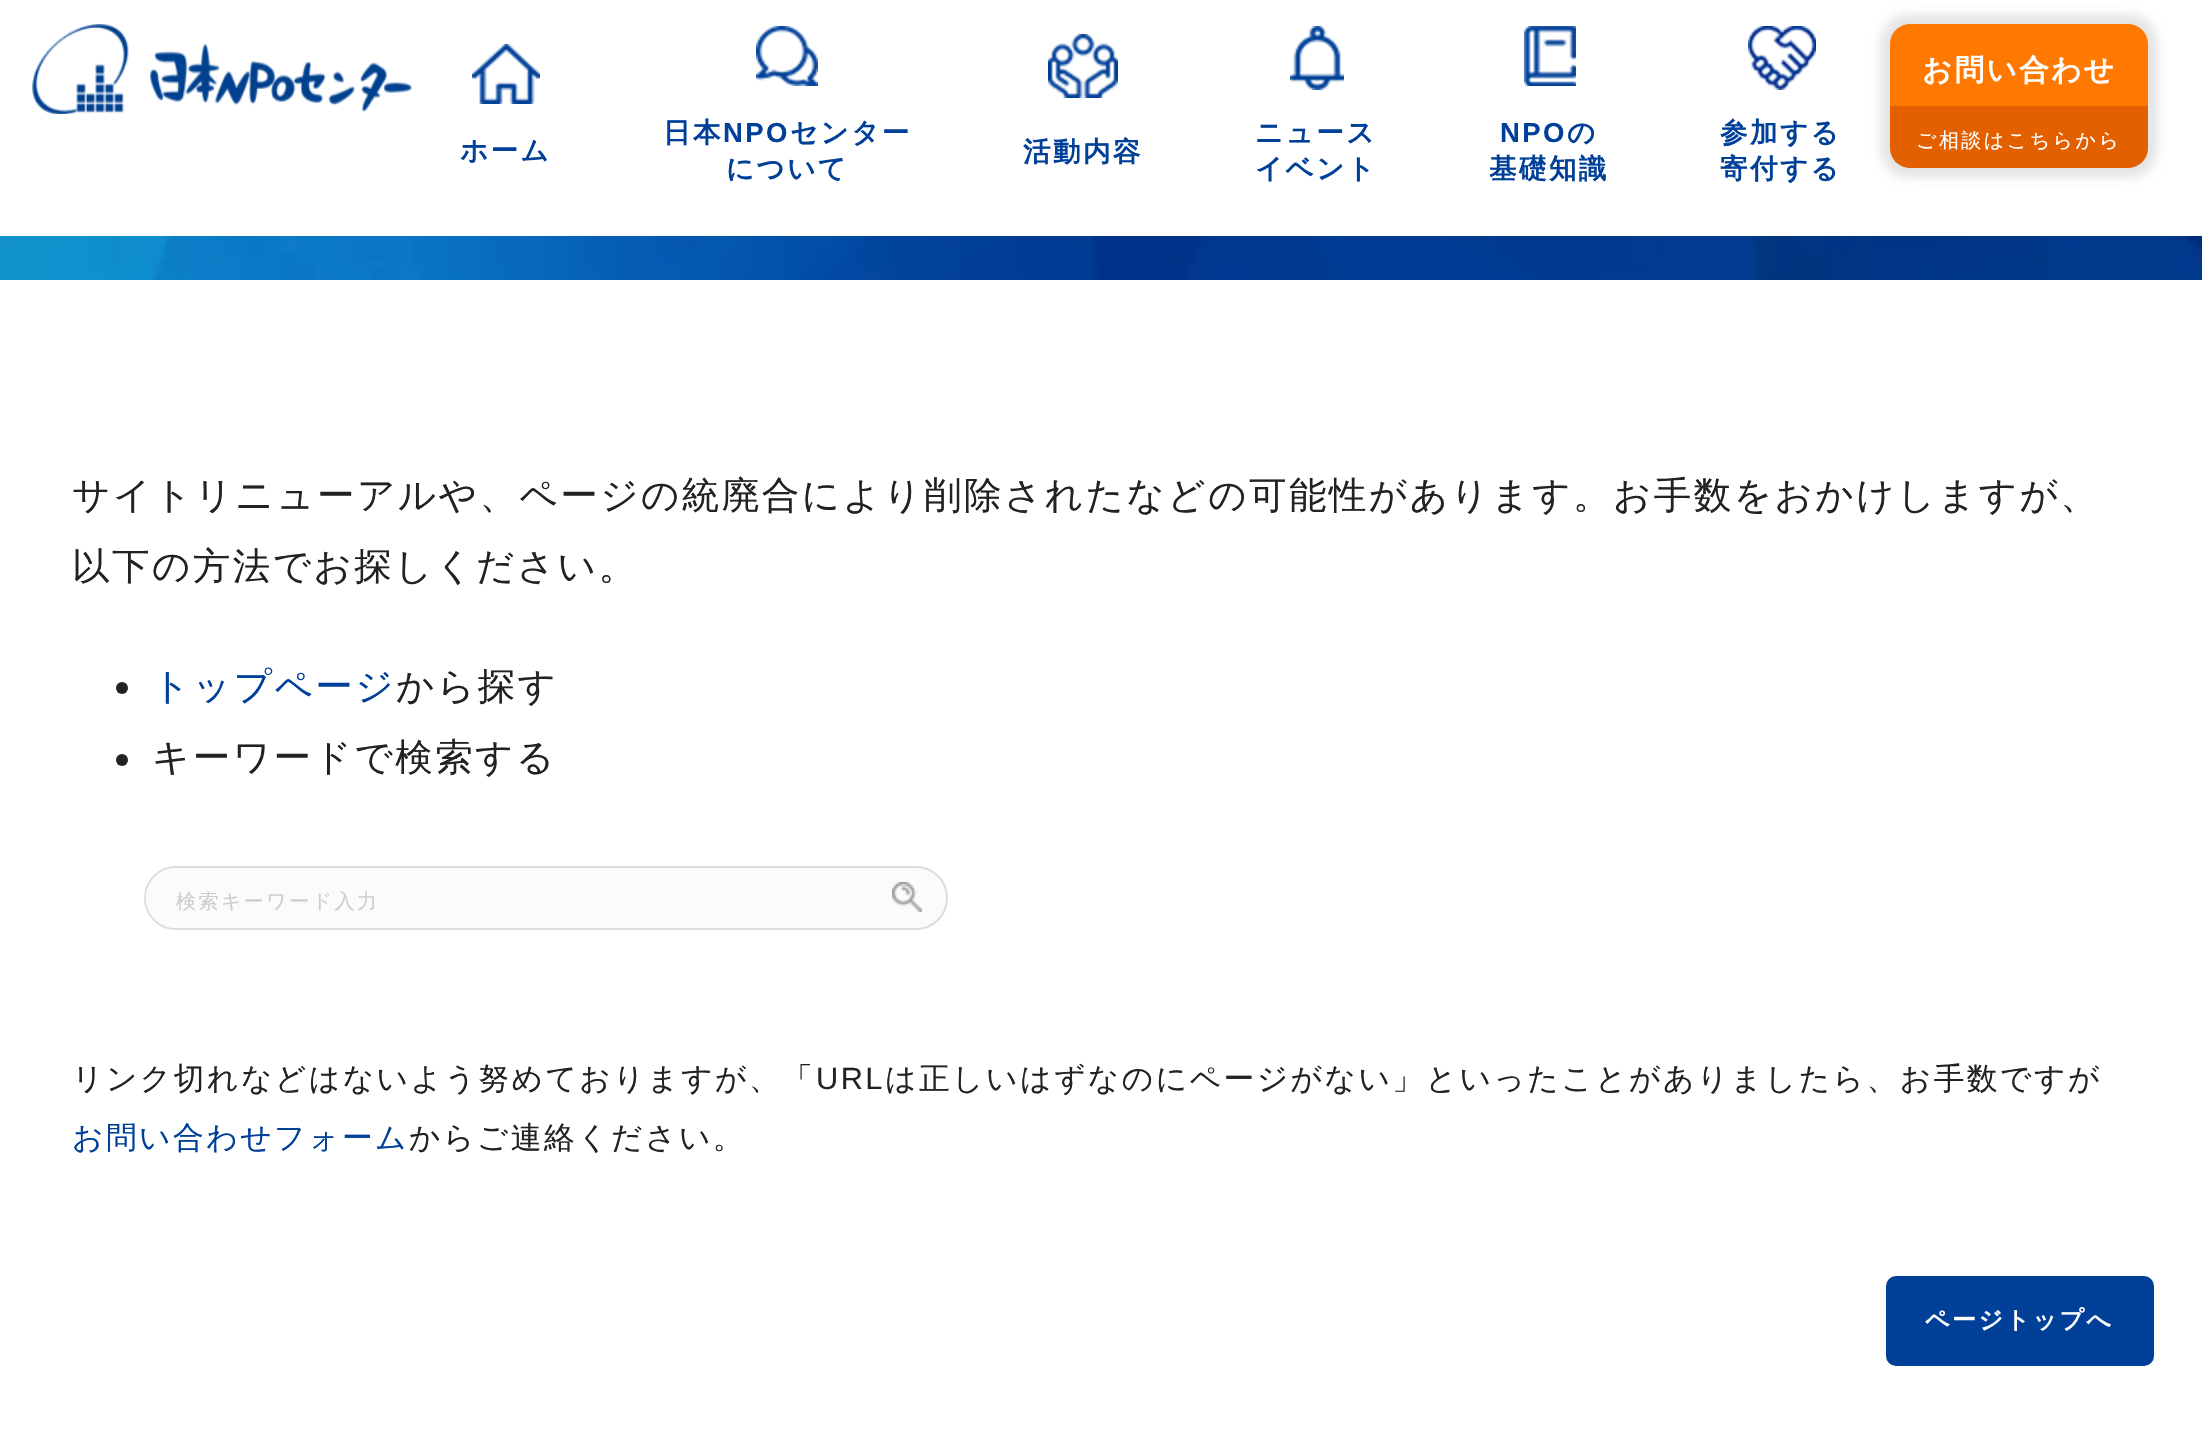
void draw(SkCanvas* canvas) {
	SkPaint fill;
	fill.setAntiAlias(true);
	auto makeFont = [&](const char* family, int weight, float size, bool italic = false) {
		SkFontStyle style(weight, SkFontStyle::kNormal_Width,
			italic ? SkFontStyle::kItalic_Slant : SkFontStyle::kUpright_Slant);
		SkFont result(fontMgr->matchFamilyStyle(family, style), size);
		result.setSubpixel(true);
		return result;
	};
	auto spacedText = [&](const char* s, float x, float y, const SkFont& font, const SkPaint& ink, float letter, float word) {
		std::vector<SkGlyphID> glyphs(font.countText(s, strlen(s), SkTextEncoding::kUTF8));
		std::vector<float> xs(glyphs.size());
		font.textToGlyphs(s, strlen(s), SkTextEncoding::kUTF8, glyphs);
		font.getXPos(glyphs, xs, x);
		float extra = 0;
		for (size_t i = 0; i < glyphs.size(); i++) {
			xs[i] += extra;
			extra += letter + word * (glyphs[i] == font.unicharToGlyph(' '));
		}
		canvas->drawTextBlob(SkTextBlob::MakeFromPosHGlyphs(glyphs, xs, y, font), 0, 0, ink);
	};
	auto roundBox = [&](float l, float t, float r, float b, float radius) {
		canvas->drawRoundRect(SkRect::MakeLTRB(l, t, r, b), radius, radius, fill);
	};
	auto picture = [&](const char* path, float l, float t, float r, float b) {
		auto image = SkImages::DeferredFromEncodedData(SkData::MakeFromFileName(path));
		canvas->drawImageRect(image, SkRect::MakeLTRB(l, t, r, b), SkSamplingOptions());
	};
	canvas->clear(0xFFFFFFFF);
	picture("image0.png", 32, 24, 412, 114);
	picture("image1.png", 472, 44, 540, 104);
	picture("image2.png", 756, 26, 818, 86);
	picture("image3.png", 1048, 34, 1118, 98);
	picture("image4.png", 1290, 26, 1344, 90);
	picture("image5.png", 1524, 26, 1576, 86);
	picture("image6.png", 1748, 26, 1816, 90);
	fill.setColor(0x1A000000);
	fill.setMaskFilter(SkMaskFilter::MakeBlur(kNormal_SkBlurStyle, 5));
	canvas->drawRoundRect(SkRect::MakeLTRB(1880, 14, 2158, 178), 30, 30, fill);
	fill.setMaskFilter(nullptr);
	fill.setColor(0xFFE26000);
	canvas->drawPath(SkPathBuilder().moveTo(1890, 106).lineTo(2148, 106).lineTo(2148, 148).cubicTo(2148, 159, 2139, 168, 2128, 168).lineTo(1910, 168).cubicTo(1899, 168, 1890, 159, 1890, 148).close().detach(), fill);
	fill.setColor(0xFFFF7800);
	canvas->drawPath(SkPathBuilder().moveTo(1910, 24).lineTo(2128, 24).cubicTo(2139, 24, 2148, 33, 2148, 44).lineTo(2148, 106).lineTo(1890, 106).lineTo(1890, 44).cubicTo(1890, 33, 1899, 24, 1910, 24).close().detach(), fill);
	picture("image7.png", 0, 236, 2202, 280);
	fill.setColor(0xFF222222);
	canvas->drawCircle(122, 688, 6, fill);
	canvas->drawCircle(122, 760, 6, fill);
	fill.setColor(0xFFFBFBFB);
	canvas->drawRoundRect(SkRect::MakeLTRB(145, 867, 947, 929), 31, 31, fill);
	fill.setStyle(SkPaint::kStroke_Style);
	fill.setStrokeWidth(2);
	fill.setColor(0xFFDDDDDD);
	canvas->drawRoundRect(SkRect::MakeLTRB(145, 867, 947, 929), 31, 31, fill);
	fill.setStyle(SkPaint::kFill_Style);
	fill.setColor(0xFFFBFBFB);
	canvas->drawPath(SkPathBuilder().moveTo(176, 868).lineTo(866, 868).lineTo(866, 928).lineTo(176, 928).cubicTo(159.5f, 928, 146, 914.5f, 146, 898).cubicTo(146, 881.5f, 159.5f, 868, 176, 868).close().detach(), fill);
	picture("image8.png", 892, 882, 922, 912);
	fill.setColor(0xFF004098);
	roundBox(1886, 1276, 2154, 1366, 10);
	auto font1 = makeFont("WenQuanYi Zen Hei", 700, 27.5f);
	spacedText("ホーム", 460, 160, font1, fill, 2.45f, 0);
	spacedText("日本", 663, 142, font1, fill, 2.45f, 0);
	auto font2 = makeFont("Liberation Sans", 700, 27.5f);
	spacedText("NPO", 723, 142, font2, fill, 2.45f, 0);
	spacedText("センター", 790, 142, font1, fill, 2.45f, 0);
	spacedText("について", 726, 178, font1, fill, 2.45f, 0);
	spacedText("活動内容", 1023, 161, font1, fill, 2.45f, 0);
	spacedText("ニュース", 1255, 142, font1, fill, 2.45f, 0);
	spacedText("イベント", 1255, 178, font1, fill, 2.45f, 0);
	spacedText("NPO", 1500, 142, font2, fill, 2.45f, 0);
	spacedText("の", 1567, 142, font1, fill, 2.45f, 0);
	spacedText("基礎知識", 1489, 178, font1, fill, 2.45f, 0);
	spacedText("参加する", 1720, 142, font1, fill, 2.45f, 0);
	spacedText("寄付する", 1720, 178, font1, fill, 2.45f, 0);
	auto font3 = makeFont("WenQuanYi Zen Hei", 700, 29.5f);
	fill.setColor(0xFFFFFFFF);
	spacedText("お問い合わせ", 1922, 80, font3, fill, 2.45f, 0);
	auto font4 = makeFont("WenQuanYi Zen Hei", 500, 20);
	spacedText("ご相談はこちらから", 1916, 147, font4, fill, 2.45f, 0);
	auto font5 = makeFont("WenQuanYi Zen Hei", 500, 37.5f);
	fill.setColor(0xFF222222);
	spacedText("サイトリニューアルや、ページの統廃合により削除されたなどの可能性があります。お手数をおかけしますが、", 72, 508, font5, fill, 2.45f, 0);
	spacedText("以下の方法でお探しください。", 72, 579, font5, fill, 2.45f, 0);
	fill.setColor(0xFF004098);
	spacedText("トップページ", 152, 699, font5, fill, 2.45f, 0);
	fill.setColor(0xFF222222);
	spacedText("から探す", 396, 699, font5, fill, 2.45f, 0);
	spacedText("キーワードで検索する", 152, 770, font5, fill, 2.45f, 0);
	fill.setColor(0xFFCDCDCD);
	spacedText("検索キーワード入力", 176, 908, font4, fill, 2.45f, 0);
	auto font6 = makeFont("WenQuanYi Zen Hei", 500, 30.75f);
	fill.setColor(0xFF222222);
	spacedText("リンク切れなどはないよう努めておりますが、「", 72, 1089, font6, fill, 2.45f, 0);
	auto font7 = makeFont("Liberation Sans", 400, 30.75f);
	spacedText("URL", 816, 1089, font7, fill, 2.45f, 0);
	spacedText("は正しいはずなのにページがない」といったことがありましたら、お手数ですが", 885, 1089, font6, fill, 2.45f, 0);
	fill.setColor(0xFF004098);
	spacedText("お問い合わせフォーム", 72, 1148, font6, fill, 2.45f, 0);
	fill.setColor(0xFF222222);
	spacedText("からご連絡ください。", 409, 1148, font6, fill, 2.45f, 0);
	auto font8 = makeFont("WenQuanYi Zen Hei", 700, 24);
	fill.setColor(0xFFFFFFFF);
	spacedText("ページトップへ", 1925, 1328, font8, fill, 2.45f, 0);
}
